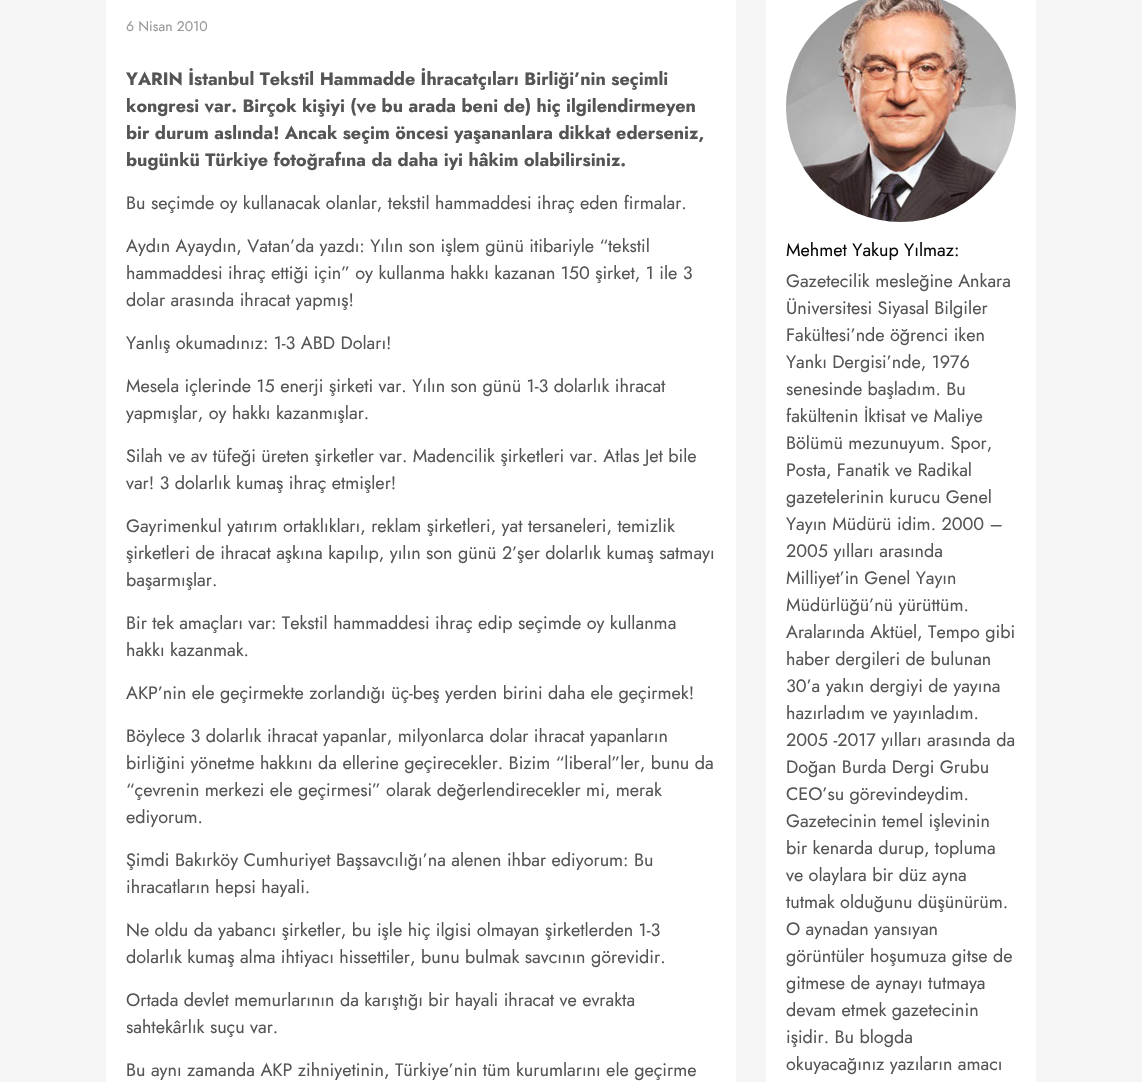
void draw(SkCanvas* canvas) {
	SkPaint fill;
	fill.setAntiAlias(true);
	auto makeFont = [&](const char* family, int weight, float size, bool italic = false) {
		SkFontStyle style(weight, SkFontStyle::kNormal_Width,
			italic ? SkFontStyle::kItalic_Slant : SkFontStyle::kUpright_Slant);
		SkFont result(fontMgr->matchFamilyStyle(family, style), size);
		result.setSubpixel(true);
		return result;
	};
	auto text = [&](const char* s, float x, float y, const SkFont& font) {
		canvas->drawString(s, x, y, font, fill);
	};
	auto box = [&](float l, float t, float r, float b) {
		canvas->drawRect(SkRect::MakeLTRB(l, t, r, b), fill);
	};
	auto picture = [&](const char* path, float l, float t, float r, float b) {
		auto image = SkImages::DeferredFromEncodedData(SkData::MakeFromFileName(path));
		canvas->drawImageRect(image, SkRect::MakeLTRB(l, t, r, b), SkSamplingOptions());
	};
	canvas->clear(0xFFF5F5F5);
	fill.setColor(0xFFFFFFFF);
	box(106, 0, 736, 1082);
	box(766, 0, 1036, 1082);
	picture("image0.png", 786, 0, 1016, 222);
	auto font1 = makeFont("Jost", 400, 14);
	fill.setColor(0xFF999999);
	text("6 Nisan 2010", 126, 31, font1);
	auto font2 = makeFont("Jost", 700, 18);
	fill.setColor(0xFF555555);
	text("YARIN İstanbul Tekstil Hammadde İhracatçıları Birliği’nin seçimli", 126, 85, font2);
	text("kongresi var. Birçok kişiyi (ve bu arada beni de) hiç ilgilendirmeyen", 126, 112, font2);
	text("bir durum aslında! Ancak seçim öncesi yaşananlara dikkat ederseniz,", 126, 139, font2);
	text("bugünkü Türkiye fotoğrafına da daha iyi hâkim olabilirsiniz.", 126, 166, font2);
	auto font3 = makeFont("Jost", 400, 18);
	text("Bu seçimde oy kullanacak olanlar, tekstil hammaddesi ihraç eden firmalar.", 126, 209, font3);
	text("Aydın Ayaydın, Vatan’da yazdı: Yılın son işlem günü itibariyle “tekstil", 126, 252, font3);
	text("hammaddesi ihraç ettiği için” oy kullanma hakkı kazanan 150 şirket, 1 ile 3", 126, 279, font3);
	text("dolar arasında ihracat yapmış!", 126, 306, font3);
	text("Yanlış okumadınız: 1-3 ABD Doları!", 126, 349, font3);
	text("Mesela içlerinde 15 enerji şirketi var. Yılın son günü 1-3 dolarlık ihracat", 126, 392, font3);
	text("yapmışlar, oy hakkı kazanmışlar.", 126, 419, font3);
	text("Silah ve av tüfeği üreten şirketler var. Madencilik şirketleri var. Atlas Jet bile", 126, 462, font3);
	text("var! 3 dolarlık kumaş ihraç etmişler!", 126, 489, font3);
	text("Gayrimenkul yatırım ortaklıkları, reklam şirketleri, yat tersaneleri, temizlik", 126, 532, font3);
	text("şirketleri de ihracat aşkına kapılıp, yılın son günü 2’şer dolarlık kumaş satmayı", 126, 559, font3);
	text("başarmışlar.", 126, 586, font3);
	text("Bir tek amaçları var: Tekstil hammaddesi ihraç edip seçimde oy kullanma", 126, 629, font3);
	text("hakkı kazanmak.", 126, 656, font3);
	text("AKP’nin ele geçirmekte zorlandığı üç-beş yerden birini daha ele geçirmek!", 126, 699, font3);
	text("Böylece 3 dolarlık ihracat yapanlar, milyonlarca dolar ihracat yapanların", 126, 742, font3);
	text("birliğini yönetme hakkını da ellerine geçirecekler. Bizim “liberal”ler, bunu da", 126, 769, font3);
	text("“çevrenin merkezi ele geçirmesi” olarak değerlendirecekler mi, merak", 126, 796, font3);
	text("ediyorum.", 126, 823, font3);
	text("Şimdi Bakırköy Cumhuriyet Başsavcılığı’na alenen ihbar ediyorum: Bu", 126, 866, font3);
	text("ihracatların hepsi hayali.", 126, 893, font3);
	text("Ne oldu da yabancı şirketler, bu işle hiç ilgisi olmayan şirketlerden 1-3", 126, 936, font3);
	text("dolarlık kumaş alma ihtiyacı hissettiler, bunu bulmak savcının görevidir.", 126, 963, font3);
	text("Ortada devlet memurlarının da karıştığı bir hayali ihracat ve evrakta", 126, 1006, font3);
	text("sahtekârlık suçu var.", 126, 1033, font3);
	text("Bu aynı zamanda AKP zihniyetinin, Türkiye’nin tüm kurumlarını ele geçirme", 126, 1076, font3);
	fill.setColor(0xFF0A0A0A);
	text("Mehmet Yakup Yılmaz:", 786, 256, font3);
	fill.setColor(0xFF555555);
	text("Gazetecilik mesleğine Ankara", 786, 287, font3);
	text("Üniversitesi Siyasal Bilgiler", 786, 314, font3);
	text("Fakültesi’nde öğrenci iken", 786, 341, font3);
	text("Yankı Dergisi’nde, 1976", 786, 368, font3);
	text("senesinde başladım. Bu", 786, 395, font3);
	text("fakültenin İktisat ve Maliye", 786, 422, font3);
	text("Bölümü mezunuyum. Spor,", 786, 449, font3);
	text("Posta, Fanatik ve Radikal", 786, 476, font3);
	text("gazetelerinin kurucu Genel", 786, 503, font3);
	text("Yayın Müdürü idim. 2000 –", 786, 530, font3);
	text("2005 yılları arasında", 786, 557, font3);
	text("Milliyet’in Genel Yayın", 786, 584, font3);
	text("Müdürlüğü’nü yürüttüm.", 786, 611, font3);
	text("Aralarında Aktüel, Tempo gibi", 786, 638, font3);
	text("haber dergileri de bulunan", 786, 665, font3);
	text("30’a yakın dergiyi de yayına", 786, 692, font3);
	text("hazırladım ve yayınladım.", 786, 719, font3);
	text("2005 -2017 yılları arasında da", 786, 746, font3);
	text("Doğan Burda Dergi Grubu", 786, 773, font3);
	text("CEO’su görevindeydim.", 786, 800, font3);
	text("Gazetecinin temel işlevinin", 786, 827, font3);
	text("bir kenarda durup, topluma", 786, 854, font3);
	text("ve olaylara bir düz ayna", 786, 881, font3);
	text("tutmak olduğunu düşünürüm.", 786, 908, font3);
	text("O aynadan yansıyan", 786, 935, font3);
	text("görüntüler hoşumuza gitse de", 786, 962, font3);
	text("gitmese de aynayı tutmaya", 786, 989, font3);
	text("devam etmek gazetecinin", 786, 1016, font3);
	text("işidir. Bu blogda", 786, 1043, font3);
	text("okuyacağınız yazıların amacı", 786, 1070, font3);
}
